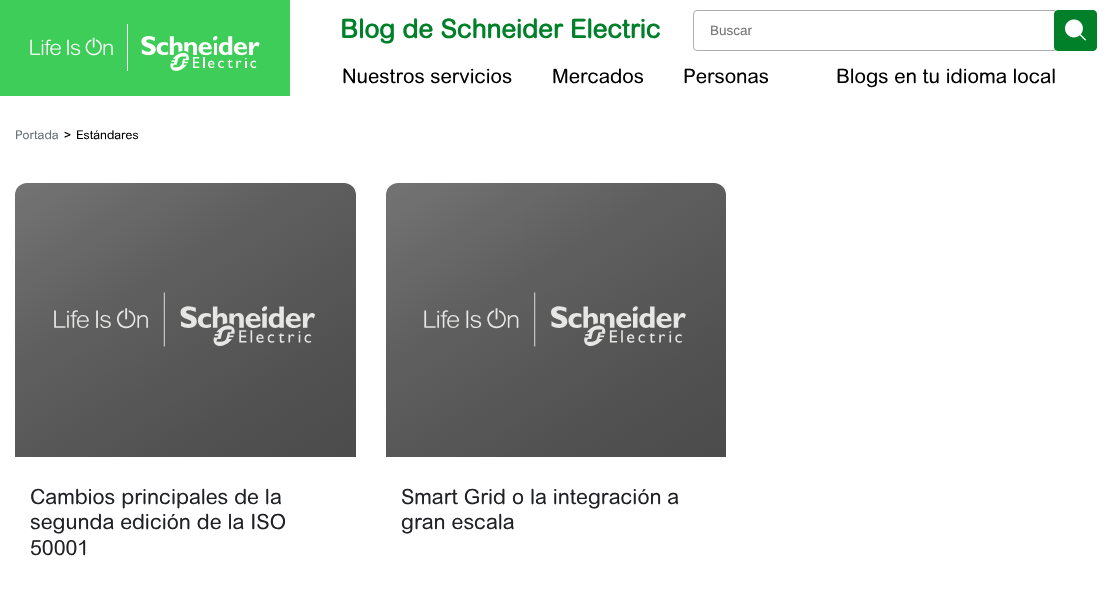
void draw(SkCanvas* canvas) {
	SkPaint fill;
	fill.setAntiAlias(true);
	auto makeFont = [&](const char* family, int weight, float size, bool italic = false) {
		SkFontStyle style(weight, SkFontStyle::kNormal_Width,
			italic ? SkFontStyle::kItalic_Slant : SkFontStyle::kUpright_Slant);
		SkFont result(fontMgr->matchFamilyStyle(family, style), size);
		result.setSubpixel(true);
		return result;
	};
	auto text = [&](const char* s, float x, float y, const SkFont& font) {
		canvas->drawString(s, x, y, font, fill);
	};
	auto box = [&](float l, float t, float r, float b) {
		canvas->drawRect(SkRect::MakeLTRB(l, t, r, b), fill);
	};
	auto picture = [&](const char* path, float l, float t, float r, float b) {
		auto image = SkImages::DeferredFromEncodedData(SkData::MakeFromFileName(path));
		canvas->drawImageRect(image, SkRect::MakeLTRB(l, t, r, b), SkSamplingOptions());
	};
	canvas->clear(0xFFFFFFFF);
	fill.setColor(0xFF3DCD58);
	box(0, 0, 290, 96);
	picture("image0.png", 30, 24, 260, 71);
	fill.setStyle(SkPaint::kStroke_Style);
	fill.setStrokeWidth(1);
	fill.setColor(0xFFACADB0);
	canvas->drawRoundRect(SkRect::MakeLTRB(693.5f, 10.5f, 1057.5f, 50.5f), 3.5f, 3.5f, fill);
	fill.setStyle(SkPaint::kFill_Style);
	fill.setColor(0xFF008029);
	canvas->drawRoundRect(SkRect::MakeLTRB(1054.5f, 10.5f, 1096.5f, 50.5f), 3.5f, 3.5f, fill);
	fill.setStyle(SkPaint::kStroke_Style);
	canvas->drawRoundRect(SkRect::MakeLTRB(1054.5f, 10.5f, 1096.5f, 50.5f), 3.5f, 3.5f, fill);
	picture("image1.png", 1065, 19, 1086, 41);
	picture("image2.png", 15, 183, 356, 457);
	picture("image3.png", 386, 183, 726, 457);
	auto font1 = makeFont("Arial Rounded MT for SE", 700, 26);
	fill.setStyle(SkPaint::kFill_Style);
	text("Blog de Schneider Electric", 340, 38, font1);
	auto font2 = makeFont("Liberation Sans", 400, 13.5f);
	fill.setColor(0xFF757575);
	text("Buscar", 710, 35, font2);
	auto font3 = makeFont("Arial Rounded MT for SE", 400, 20);
	fill.setColor(0xFF000000);
	text("Nuestros servicios", 342, 83, font3);
	text("Mercados", 552, 83, font3);
	text("Personas", 683, 83, font3);
	text("Blogs en tu idioma local", 836, 83, font3);
	auto font4 = makeFont("Arial Rounded MT for SE", 400, 12);
	fill.setColor(0xFF676F73);
	text("Portada", 15, 139, font4);
	fill.setColor(0xFF000000);
	text(">", 64, 139, font4);
	text("Estándares", 76, 139, font4);
	auto font5 = makeFont("Arial Rounded MT for SE", 400, 21);
	fill.setColor(0xFF202124);
	text("Cambios principales de la", 30, 504, font5);
	text("segunda edición de la ISO", 30, 529, font5);
	text("50001", 30, 555, font5);
	text("Smart Grid o la integración a", 401, 504, font5);
	text("gran escala", 401, 529, font5);
}
